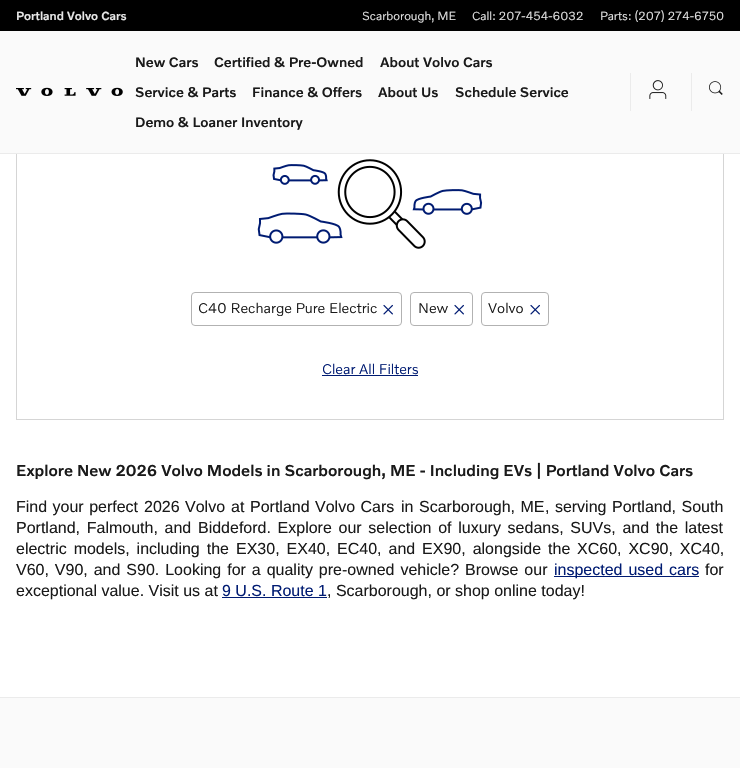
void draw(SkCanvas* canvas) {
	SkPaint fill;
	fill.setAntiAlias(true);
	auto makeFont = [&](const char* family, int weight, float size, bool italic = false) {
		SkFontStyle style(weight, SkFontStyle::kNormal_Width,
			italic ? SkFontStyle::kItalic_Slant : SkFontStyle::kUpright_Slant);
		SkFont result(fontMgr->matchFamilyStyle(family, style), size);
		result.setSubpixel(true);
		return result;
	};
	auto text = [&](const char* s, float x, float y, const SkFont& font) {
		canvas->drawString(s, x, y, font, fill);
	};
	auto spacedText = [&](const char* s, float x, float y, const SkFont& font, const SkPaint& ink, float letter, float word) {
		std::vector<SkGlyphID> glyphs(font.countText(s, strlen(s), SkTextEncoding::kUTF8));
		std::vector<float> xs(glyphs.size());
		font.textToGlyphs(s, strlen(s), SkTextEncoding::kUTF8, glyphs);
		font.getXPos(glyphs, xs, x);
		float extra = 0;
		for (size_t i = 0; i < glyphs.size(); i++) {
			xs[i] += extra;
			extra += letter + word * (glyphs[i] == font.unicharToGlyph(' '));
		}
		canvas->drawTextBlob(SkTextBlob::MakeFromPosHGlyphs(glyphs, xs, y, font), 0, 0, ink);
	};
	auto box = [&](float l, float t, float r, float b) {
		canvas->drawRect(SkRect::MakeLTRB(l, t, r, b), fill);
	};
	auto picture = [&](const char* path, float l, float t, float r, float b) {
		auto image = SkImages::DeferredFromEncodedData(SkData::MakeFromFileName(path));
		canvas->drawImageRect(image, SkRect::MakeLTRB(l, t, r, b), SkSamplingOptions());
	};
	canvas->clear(0xFFFFFFFF);
	fill.setStyle(SkPaint::kStroke_Style);
	fill.setStrokeWidth(1);
	fill.setColor(0xFFD5D5D5);
	canvas->drawRect(SkRect::MakeLTRB(16.5f, 15.5f, 723.5f, 419.5f), fill);
	fill.setStyle(SkPaint::kFill_Style);
	fill.setColor(0xFFFAFAFA);
	box(0, 31, 740, 153);
	fill.setColor(0xFFEBEBEB);
	box(0, 153, 740, 154);
	fill.setColor(0xFF000000);
	box(0, 0, 740, 31);
	picture("image0.png", 16, 87, 123, 96);
	fill.setColor(0xFFEBEBEB);
	box(630, 73, 631, 111);
	picture("image1.png", 649, 80, 667, 99);
	box(691, 73, 692, 111);
	picture("image2.png", 709, 81, 723, 95);
	picture("image3.png", 257, 159, 483, 249);
	fill.setStyle(SkPaint::kStroke_Style);
	fill.setColor(0xFFB2B2B2);
	canvas->drawRoundRect(SkRect::MakeLTRB(191.5f, 292.5f, 401.5f, 325.5f), 3.5f, 3.5f, fill);
	picture("image4.png", 383, 304, 393, 315);
	canvas->drawRoundRect(SkRect::MakeLTRB(410.5f, 292.5f, 472.5f, 325.5f), 3.5f, 3.5f, fill);
	picture("image4.png", 454, 304, 464, 315);
	canvas->drawRoundRect(SkRect::MakeLTRB(481.5f, 292.5f, 548.5f, 325.5f), 3.5f, 3.5f, fill);
	picture("image4.png", 530, 304, 540, 315);
	fill.setStyle(SkPaint::kFill_Style);
	fill.setColor(0xFF001B72);
	box(322, 375, 418, 376);
	box(554, 576, 699, 577);
	box(222, 597, 327, 598);
	fill.setColor(0xFFFAFAFA);
	box(0, 698, 740, 768);
	fill.setColor(0xFFEBEBEB);
	box(0, 697, 740, 698);
	auto font1 = makeFont("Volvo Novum", 500, 12);
	fill.setColor(0xFFE6E6E6);
	text("Portland Volvo Cars", 16, 20, font1);
	auto font2 = makeFont("Volvo Novum", 300, 12);
	text("Scarborough, ME", 362, 20, font2);
	text("Call: 207-454-6032", 472, 20, font2);
	text("Parts: (207) 274-6750", 600, 20, font2);
	auto font3 = makeFont("Volvo Novum", 500, 14);
	fill.setColor(0xFF1A1A1A);
	text("New Cars", 135, 67, font3);
	text("Certified & Pre-Owned", 214, 67, font3);
	text("About Volvo Cars", 380, 67, font3);
	text("Service & Parts", 135, 97, font3);
	text("Finance & Offers", 252, 97, font3);
	text("About Us", 378, 97, font3);
	text("Schedule Service", 455, 97, font3);
	text("Demo & Loaner Inventory", 135, 127, font3);
	auto font4 = makeFont("Volvo Novum", 300, 14.4f);
	text("C40 Recharge Pure Electric", 198, 313, font4);
	text("New", 418, 313, font4);
	text("Volvo", 488, 313, font4);
	fill.setColor(0xFF001B72);
	text("Clear All Filters", 322, 374, font4);
	auto font5 = makeFont("Volvo Novum", 500, 16);
	fill.setColor(0xFF1A1A1A);
	text("Explore New 2026 Volvo Models in Scarborough, ME - Including EVs | Portland Volvo Cars", 16, 476, font5);
	auto font6 = makeFont("Liberation Sans", 400, 16);
	spacedText("Find your perfect", 16, 512, font6, fill, 0, 1);
	spacedText("2026 Volvo", 144, 512, font6, fill, 0, 1);
	text("at", 231, 512, font6);
	spacedText("Portland Volvo Cars", 250, 512, font6, fill, 0, 1);
	text("in", 401, 512, font6);
	spacedText("Scarborough, ME", 419, 512, font6, fill, 0, 1);
	spacedText(", serving", 545, 512, font6, fill, 0, 1);
	spacedText("Portland, South", 612, 512, font6, fill, 0, 1);
	spacedText("Portland, Falmouth, and Biddeford. Explore our selection of luxury sedans, SUVs, and the latest", 16, 533, font6, fill, 0, 2.25f);
	spacedText("electric models, including the", 16, 554, font6, fill, 0, 2.5f);
	spacedText("EX30, EX40, EC40, and EX90, alongside the", 236, 554, font6, fill, 0, 2.5f);
	spacedText("XC60, XC90, XC40,", 577, 554, font6, fill, 0, 2.5f);
	spacedText("V60, V90, and S90. Looking for a quality pre-owned vehicle? Browse our", 16, 575, font6, fill, 0, 1.5f);
	fill.setColor(0xFF001B72);
	spacedText("inspected used cars", 554, 575, font6, fill, 0, 1.5f);
	fill.setColor(0xFF1A1A1A);
	text("for", 705, 575, font6);
	text("exceptional value. Visit us at", 16, 596, font6);
	fill.setColor(0xFF001B72);
	text("9 U.S. Route 1", 222, 596, font6);
	fill.setColor(0xFF1A1A1A);
	text(", Scarborough, or shop online today!", 327, 596, font6);
}
